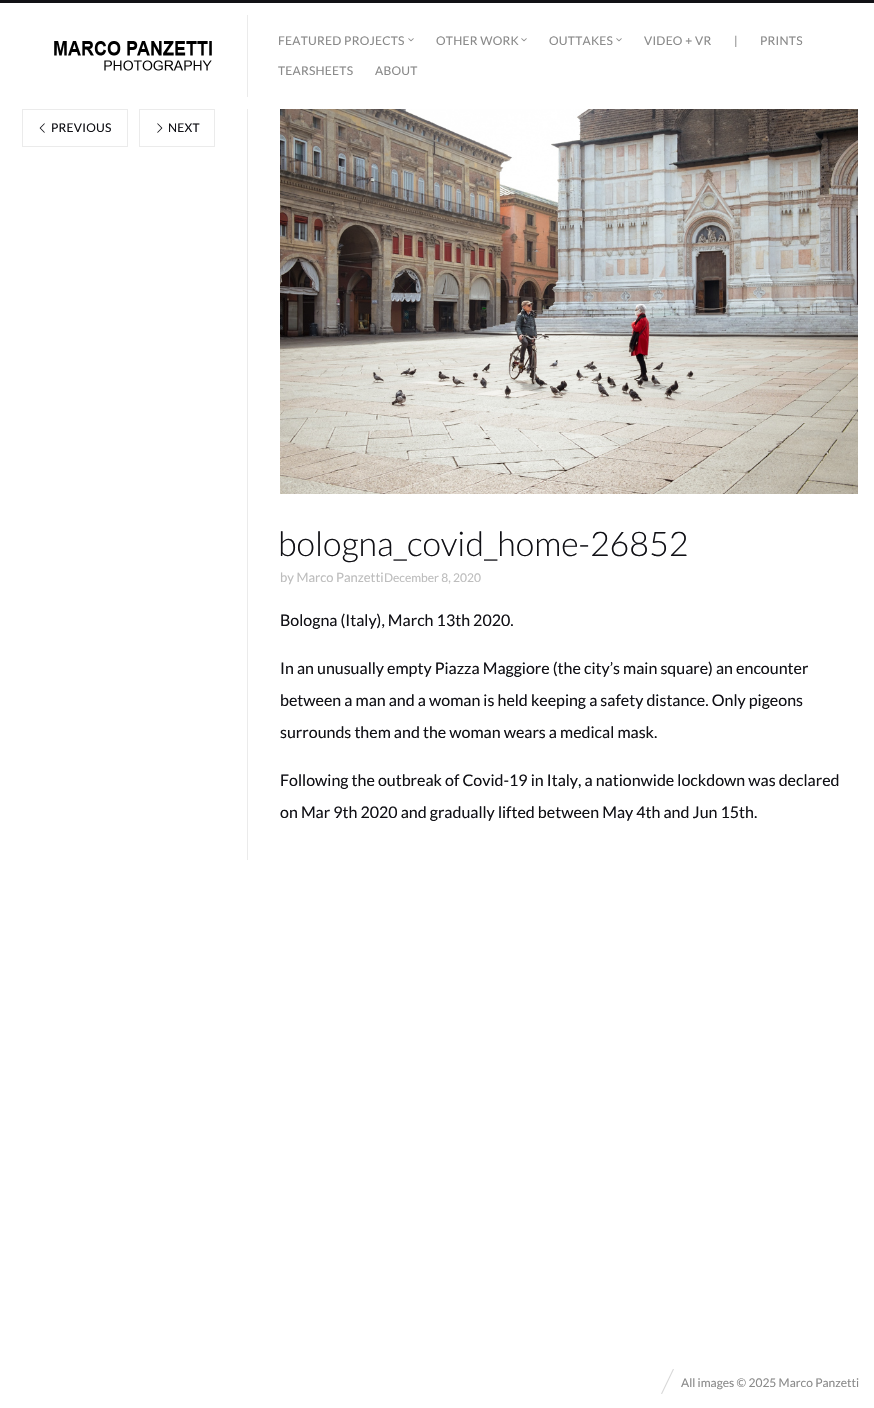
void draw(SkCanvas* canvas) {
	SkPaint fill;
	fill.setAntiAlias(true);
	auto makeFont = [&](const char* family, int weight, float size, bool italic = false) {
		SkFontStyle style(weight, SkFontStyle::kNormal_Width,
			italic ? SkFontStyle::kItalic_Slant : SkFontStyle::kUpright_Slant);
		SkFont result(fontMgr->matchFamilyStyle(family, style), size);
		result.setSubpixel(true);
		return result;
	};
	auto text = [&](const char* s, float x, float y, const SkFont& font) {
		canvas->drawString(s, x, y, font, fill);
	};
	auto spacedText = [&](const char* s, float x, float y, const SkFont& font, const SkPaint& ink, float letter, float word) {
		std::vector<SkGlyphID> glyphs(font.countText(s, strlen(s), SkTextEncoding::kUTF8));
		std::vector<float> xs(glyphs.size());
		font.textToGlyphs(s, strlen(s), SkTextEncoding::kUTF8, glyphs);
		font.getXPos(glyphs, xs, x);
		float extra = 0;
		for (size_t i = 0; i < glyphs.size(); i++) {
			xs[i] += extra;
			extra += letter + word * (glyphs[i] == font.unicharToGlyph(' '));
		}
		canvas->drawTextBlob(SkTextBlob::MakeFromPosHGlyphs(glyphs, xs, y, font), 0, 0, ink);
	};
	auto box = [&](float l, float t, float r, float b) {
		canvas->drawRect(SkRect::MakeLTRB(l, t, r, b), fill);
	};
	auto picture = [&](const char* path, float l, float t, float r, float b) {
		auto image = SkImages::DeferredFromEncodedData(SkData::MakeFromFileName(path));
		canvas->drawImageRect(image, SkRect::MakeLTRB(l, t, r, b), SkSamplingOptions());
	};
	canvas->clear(0xFFFFFFFF);
	fill.setColor(0xFF111116);
	box(0, 0, 874, 3);
	fill.setColor(0xFFEBEBEB);
	box(247, 15, 248, 97);
	picture("image0.png", 54, 41, 212, 71);
	picture("image1.png", 408, 38, 414, 42);
	picture("image1.png", 521, 38, 527, 42);
	picture("image1.png", 616, 38, 622, 42);
	box(247, 109, 248, 860);
	fill.setStyle(SkPaint::kStroke_Style);
	fill.setStrokeWidth(1);
	canvas->drawRect(SkRect::MakeLTRB(22.5f, 109.5f, 127.5f, 146.5f), fill);
	picture("image2.png", 39, 123, 45, 133);
	canvas->drawRect(SkRect::MakeLTRB(139.5f, 109.5f, 214.5f, 146.5f), fill);
	picture("image3.png", 157, 123, 163, 133);
	picture("image4.png", 280, 109, 858, 494);
	picture("image5.png", 661, 1369, 674, 1394);
	auto font1 = makeFont("Lato", 400, 12);
	fill.setStyle(SkPaint::kFill_Style);
	fill.setColor(0xFF8A8A8A);
	spacedText("FEATURED PROJECTS", 278, 45, font1, fill, 0.25f, 0);
	spacedText("OTHER WORK", 436, 45, font1, fill, 0.25f, 0);
	spacedText("OUTTAKES", 549, 45, font1, fill, 0.25f, 0);
	spacedText("VIDEO + VR", 644, 45, font1, fill, 0.25f, 0);
	spacedText("|", 734, 45, font1, fill, 0.25f, 0);
	spacedText("PRINTS", 760, 45, font1, fill, 0.25f, 0);
	spacedText("TEARSHEETS", 278, 75, font1, fill, 0.25f, 0);
	spacedText("ABOUT", 375, 75, font1, fill, 0.25f, 0);
	fill.setColor(0xFF111116);
	spacedText("PREVIOUS", 51, 132, font1, fill, 0.25f, 0);
	spacedText("NEXT", 168, 132, font1, fill, 0.25f, 0);
	auto font2 = makeFont("Lato", 300, 34);
	text("bologna_covid_home-26852", 278, 556, font2);
	auto font3 = makeFont("Lato", 400, 13);
	fill.setColor(0xFFBDBDBD);
	text("by Marco Panzetti", 280, 582, font3);
	text("December 8, 2020", 384, 582, font1);
	auto font4 = makeFont("Lato", 400, 16);
	fill.setColor(0xFF111116);
	text("Bologna (Italy), March 13th 2020.", 280, 626, font4);
	text("In an unusually empty Piazza Maggiore (the city’s main square) an encounter", 280, 674, font4);
	text("between a man and a woman is held keeping a safety distance. Only pigeons", 280, 706, font4);
	text("surrounds them and the woman wears a medical mask.", 280, 738, font4);
	text("Following the outbreak of Covid-19 in Italy, a nationwide lockdown was declared", 280, 786, font4);
	text("on Mar 9th 2020 and gradually lifted between May 4th and Jun 15th.", 280, 818, font4);
	fill.setColor(0xFF8A8A8A);
	text("All images © 2025 Marco Panzetti", 681, 1387, font1);
}
